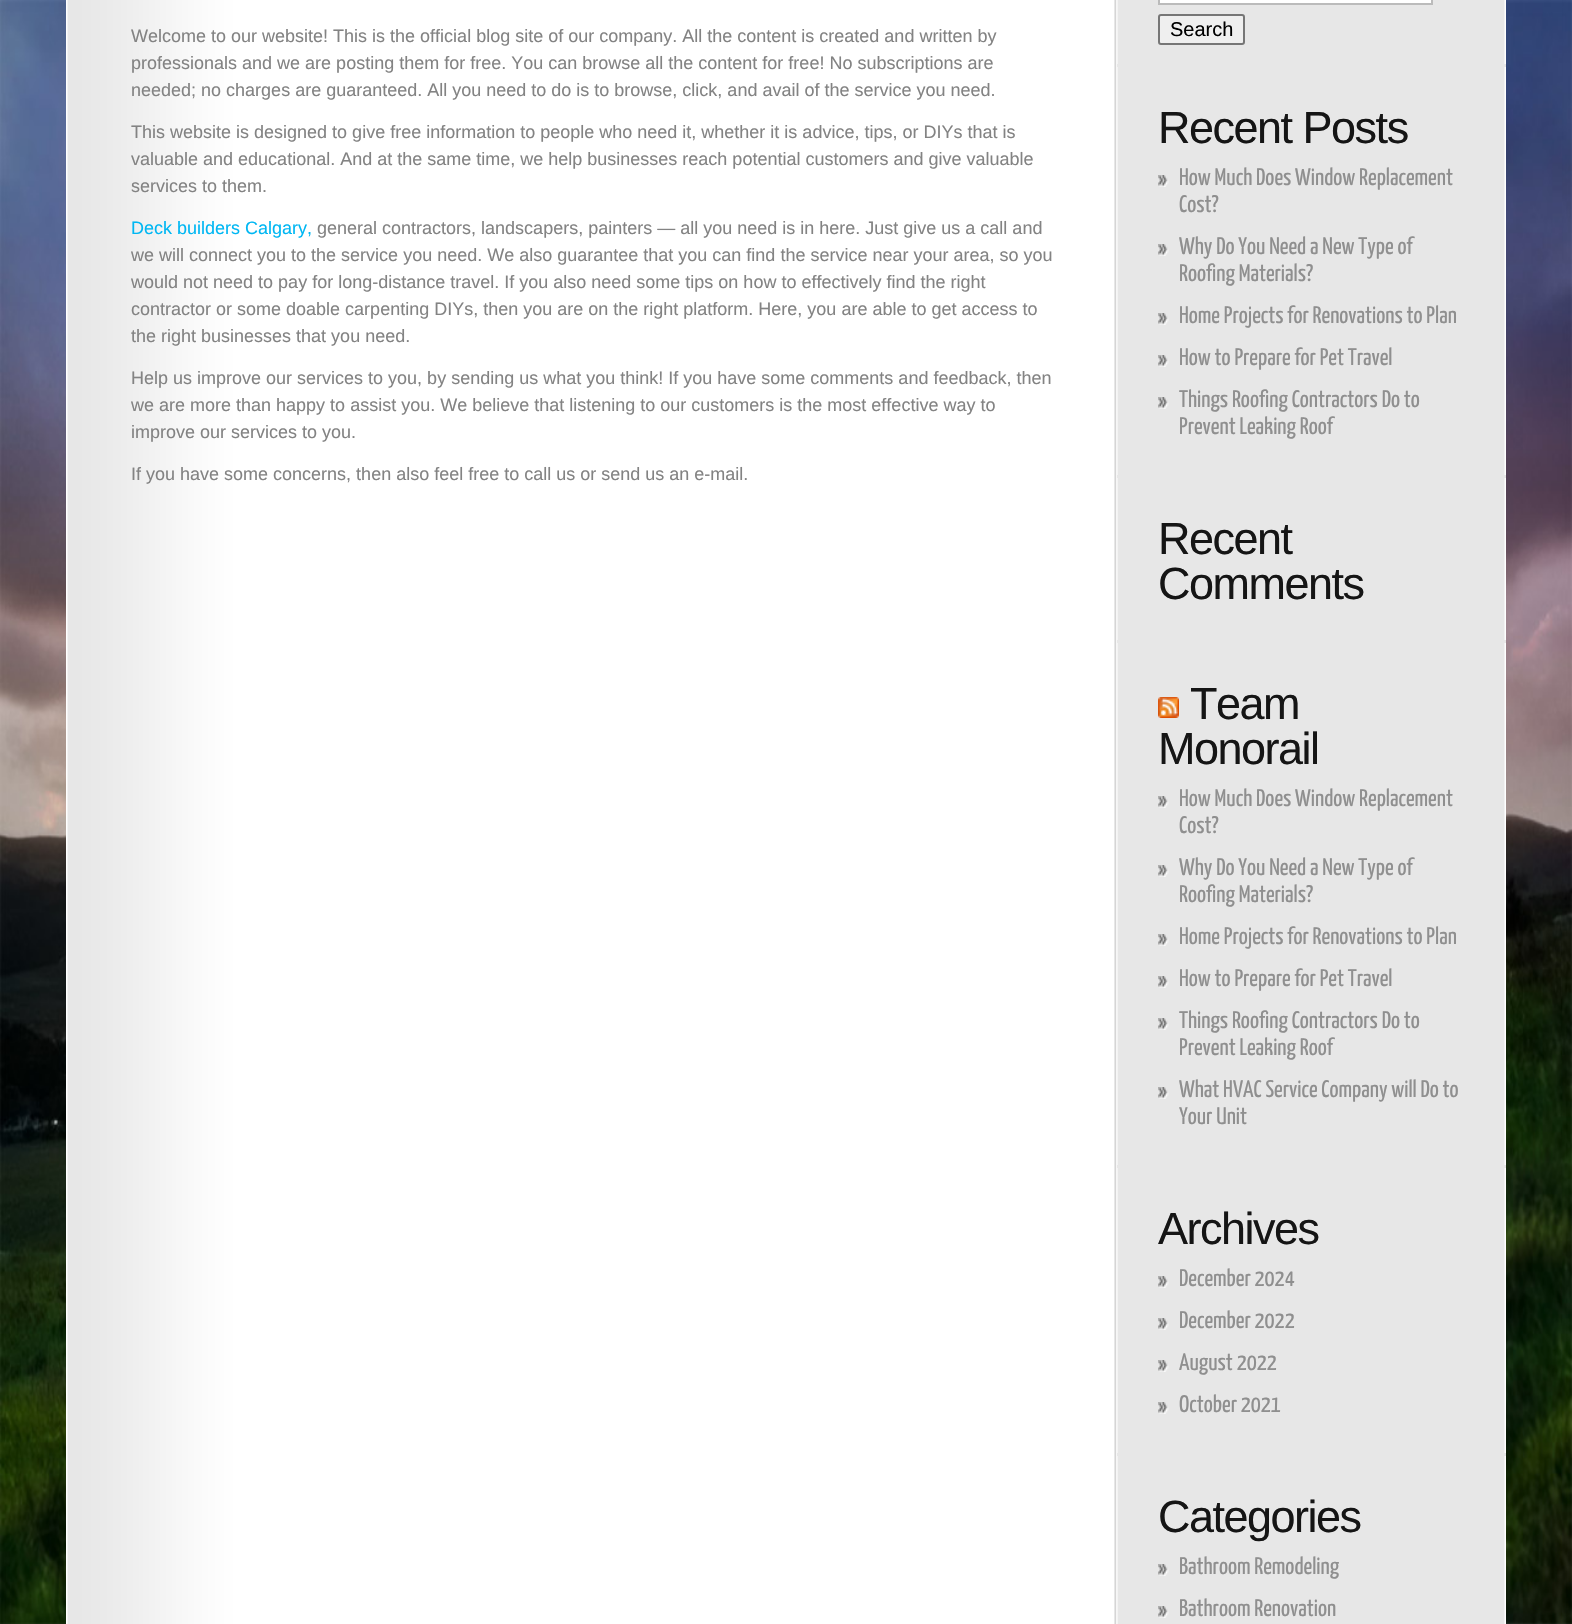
void draw(SkCanvas* canvas) {
	SkPaint fill;
	fill.setAntiAlias(true);
	auto makeFont = [&](const char* family, int weight, float size, bool italic = false) {
		SkFontStyle style(weight, SkFontStyle::kNormal_Width,
			italic ? SkFontStyle::kItalic_Slant : SkFontStyle::kUpright_Slant);
		SkFont result(fontMgr->matchFamilyStyle(family, style), size);
		result.setSubpixel(true);
		return result;
	};
	auto text = [&](const char* s, float x, float y, const SkFont& font) {
		canvas->drawString(s, x, y, font, fill);
	};
	auto spacedText = [&](const char* s, float x, float y, const SkFont& font, const SkPaint& ink, float letter, float word) {
		std::vector<SkGlyphID> glyphs(font.countText(s, strlen(s), SkTextEncoding::kUTF8));
		std::vector<float> xs(glyphs.size());
		font.textToGlyphs(s, strlen(s), SkTextEncoding::kUTF8, glyphs);
		font.getXPos(glyphs, xs, x);
		float extra = 0;
		for (size_t i = 0; i < glyphs.size(); i++) {
			xs[i] += extra;
			extra += letter + word * (glyphs[i] == font.unicharToGlyph(' '));
		}
		canvas->drawTextBlob(SkTextBlob::MakeFromPosHGlyphs(glyphs, xs, y, font), 0, 0, ink);
	};
	auto box = [&](float l, float t, float r, float b) {
		canvas->drawRect(SkRect::MakeLTRB(l, t, r, b), fill);
	};
	auto picture = [&](const char* path, float l, float t, float r, float b) {
		auto image = SkImages::DeferredFromEncodedData(SkData::MakeFromFileName(path));
		canvas->drawImageRect(image, SkRect::MakeLTRB(l, t, r, b), SkSamplingOptions());
	};
	canvas->clear(0xFFFFFFFF);
	picture("image1.png", 0, 1623, 1572, 1624);
	picture("image0.png", 0, 0, 1572, 1624);
	picture("image2.png", 66, 0, 1506, 1624);
	fill.setColor(0xFFE7E7E7);
	box(1117, 64, 1506, 67);
	fill.setColor(0xFFFFFFFF);
	canvas->drawRect(SkRect::MakeLTRB(1159, -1, 1432, 4), fill);
	fill.setStyle(SkPaint::kStroke_Style);
	fill.setStrokeWidth(2);
	fill.setColor(0xFFBBBBBB);
	canvas->drawRect(SkRect::MakeLTRB(1159, -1, 1432, 4), fill);
	fill.setStyle(SkPaint::kFill_Style);
	fill.setColor(0xFFEFEFEF);
	canvas->drawRoundRect(SkRect::MakeLTRB(1159, 15, 1244, 44), 2, 2, fill);
	fill.setStyle(SkPaint::kStroke_Style);
	fill.setColor(0xFF767676);
	canvas->drawRoundRect(SkRect::MakeLTRB(1159, 15, 1244, 44), 2, 2, fill);
	fill.setStyle(SkPaint::kFill_Style);
	fill.setColor(0xFFE7E7E7);
	box(1117, 475, 1506, 478);
	picture("image3.png", 1158, 175, 1169, 187);
	picture("image3.png", 1158, 244, 1169, 256);
	picture("image3.png", 1158, 313, 1169, 325);
	picture("image3.png", 1158, 355, 1169, 367);
	picture("image3.png", 1158, 397, 1169, 409);
	box(1117, 640, 1506, 643);
	box(1117, 1165, 1506, 1168);
	picture("image4.png", 1158, 697, 1179, 718);
	picture("image3.png", 1158, 796, 1169, 808);
	picture("image3.png", 1158, 865, 1169, 877);
	picture("image3.png", 1158, 934, 1169, 946);
	picture("image3.png", 1158, 976, 1169, 988);
	picture("image3.png", 1158, 1018, 1169, 1030);
	picture("image3.png", 1158, 1087, 1169, 1099);
	box(1117, 1453, 1506, 1456);
	picture("image3.png", 1158, 1276, 1169, 1288);
	picture("image3.png", 1158, 1318, 1169, 1330);
	picture("image3.png", 1158, 1360, 1169, 1372);
	picture("image3.png", 1158, 1402, 1169, 1414);
	picture("image3.png", 1158, 1564, 1169, 1576);
	picture("image3.png", 1158, 1606, 1169, 1618);
	auto font1 = makeFont("Liberation Sans", 400, 18);
	fill.setColor(0xFF838383);
	text("Welcome to our website! This is the official blog site of our company. All the content is created and written by", 131, 42, font1);
	text("professionals and we are posting them for free. You can browse all the content for free! No subscriptions are", 131, 69, font1);
	text("needed; no charges are guaranteed. All you need to do is to browse, click, and avail of the service you need.", 131, 96, font1);
	text("This website is designed to give free information to people who need it, whether it is advice, tips, or DIYs that is", 131, 138, font1);
	text("valuable and educational. And at the same time, we help businesses reach potential customers and give valuable", 131, 165, font1);
	text("services to them.", 131, 192, font1);
	fill.setColor(0xFF00B7F3);
	text("Deck builders Calgary,", 131, 234, font1);
	fill.setColor(0xFF838383);
	text("general contractors, landscapers, painters — all you need is in here. Just give us a call and", 317, 234, font1);
	text("we will connect you to the service you need. We also guarantee that you can find the service near your area, so you", 131, 261, font1);
	text("would not need to pay for long-distance travel. If you also need some tips on how to effectively find the right", 131, 288, font1);
	text("contractor or some doable carpenting DIYs, then you are on the right platform. Here, you are able to get access to", 131, 315, font1);
	text("the right businesses that you need.", 131, 342, font1);
	text("Help us improve our services to you, by sending us what you think! If you have some comments and feedback, then", 131, 384, font1);
	text("we are more than happy to assist you. We believe that listening to our customers is the most effective way to", 131, 411, font1);
	text("improve our services to you.", 131, 438, font1);
	text("If you have some concerns, then also feel free to call us or send us an e-mail.", 131, 480, font1);
	auto font2 = makeFont("Liberation Sans", 400, 20);
	fill.setColor(0xFF000000);
	text("Search", 1170, 36, font2);
	auto font3 = makeFont("Liberation Sans", 400, 45);
	fill.setColor(0xFF151515);
	spacedText("Recent Posts", 1158, 143, font3, fill, -1.5f, 0);
	auto font4 = makeFont("Yanone Kaffeesatz", 400, 24);
	fill.setColor(0xFF8F8F8F);
	text("How Much Does Window Replacement", 1179, 185, font4);
	text("Cost?", 1179, 212, font4);
	text("Why Do You Need a New Type of", 1179, 254, font4);
	text("Roofing Materials?", 1179, 281, font4);
	text("Home Projects for Renovations to Plan", 1179, 323, font4);
	text("How to Prepare for Pet Travel", 1179, 365, font4);
	text("Things Roofing Contractors Do to", 1179, 407, font4);
	text("Prevent Leaking Roof", 1179, 434, font4);
	fill.setColor(0xFF151515);
	spacedText("Recent", 1158, 554, font3, fill, -1.5f, 0);
	spacedText("Comments", 1158, 599, font3, fill, -1.5f, 0);
	spacedText("Team", 1190, 719, font3, fill, -1.5f, 0);
	spacedText("Monorail", 1158, 764, font3, fill, -1.5f, 0);
	fill.setColor(0xFF8F8F8F);
	text("How Much Does Window Replacement", 1179, 806, font4);
	text("Cost?", 1179, 833, font4);
	text("Why Do You Need a New Type of", 1179, 875, font4);
	text("Roofing Materials?", 1179, 902, font4);
	text("Home Projects for Renovations to Plan", 1179, 944, font4);
	text("How to Prepare for Pet Travel", 1179, 986, font4);
	text("Things Roofing Contractors Do to", 1179, 1028, font4);
	text("Prevent Leaking Roof", 1179, 1055, font4);
	text("What HVAC Service Company will Do to", 1179, 1097, font4);
	text("Your Unit", 1179, 1124, font4);
	fill.setColor(0xFF151515);
	spacedText("Archives", 1158, 1244, font3, fill, -1.5f, 0);
	fill.setColor(0xFF8F8F8F);
	text("December 2024", 1179, 1286, font4);
	text("December 2022", 1179, 1328, font4);
	text("August 2022", 1179, 1370, font4);
	text("October 2021", 1179, 1412, font4);
	fill.setColor(0xFF151515);
	spacedText("Categories", 1158, 1532, font3, fill, -1.5f, 0);
	fill.setColor(0xFF8F8F8F);
	text("Bathroom Remodeling", 1179, 1574, font4);
	text("Bathroom Renovation", 1179, 1616, font4);
}
